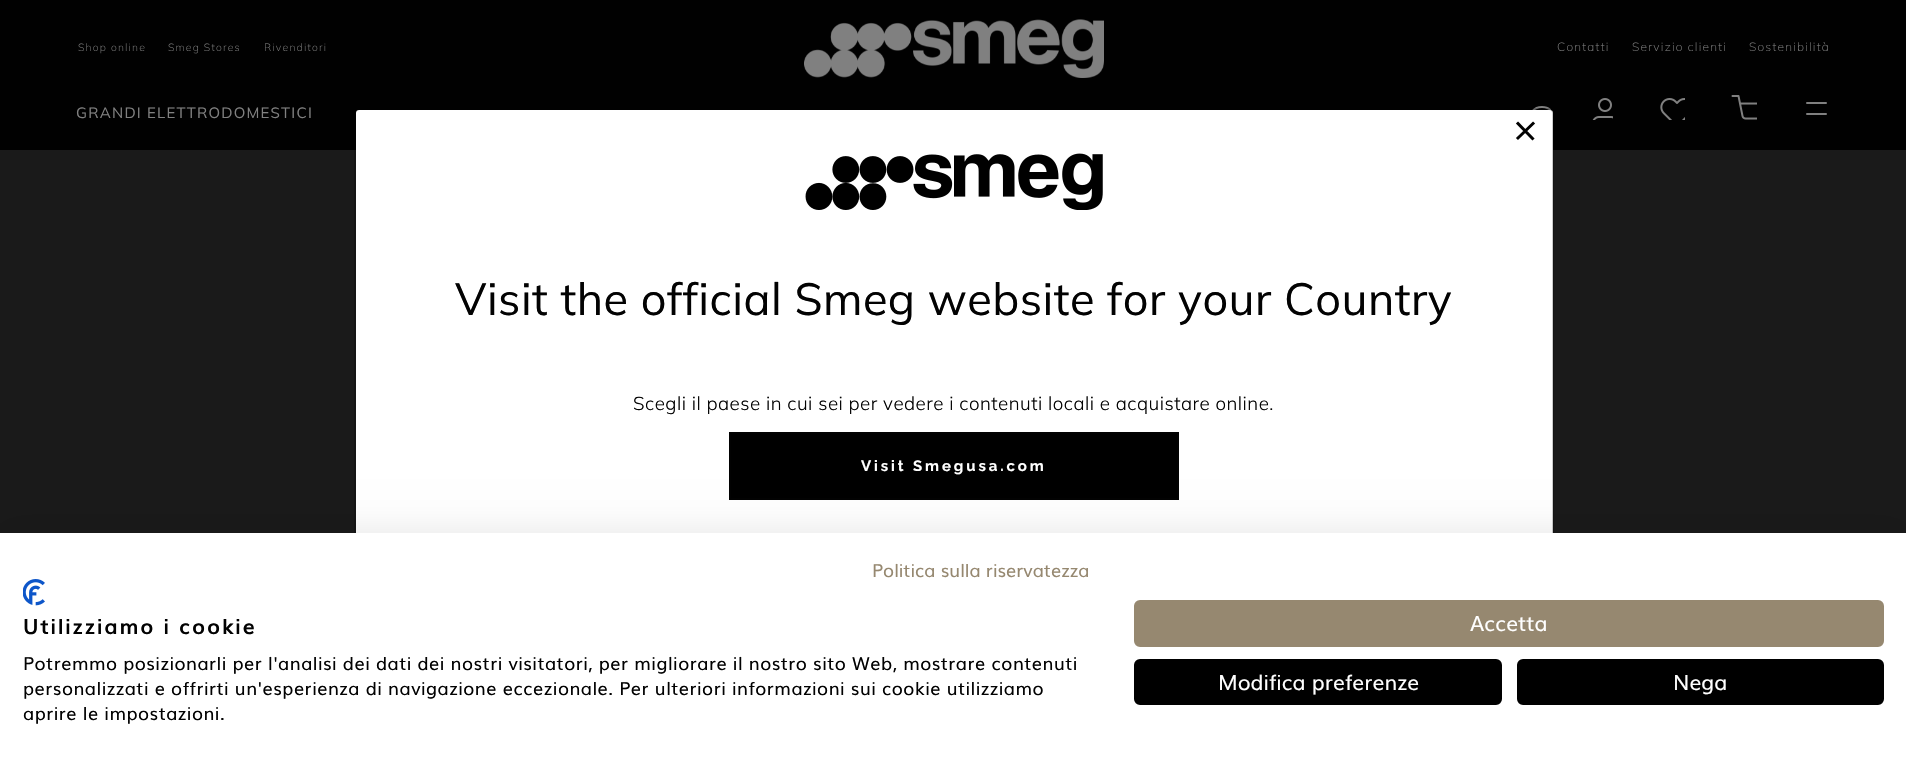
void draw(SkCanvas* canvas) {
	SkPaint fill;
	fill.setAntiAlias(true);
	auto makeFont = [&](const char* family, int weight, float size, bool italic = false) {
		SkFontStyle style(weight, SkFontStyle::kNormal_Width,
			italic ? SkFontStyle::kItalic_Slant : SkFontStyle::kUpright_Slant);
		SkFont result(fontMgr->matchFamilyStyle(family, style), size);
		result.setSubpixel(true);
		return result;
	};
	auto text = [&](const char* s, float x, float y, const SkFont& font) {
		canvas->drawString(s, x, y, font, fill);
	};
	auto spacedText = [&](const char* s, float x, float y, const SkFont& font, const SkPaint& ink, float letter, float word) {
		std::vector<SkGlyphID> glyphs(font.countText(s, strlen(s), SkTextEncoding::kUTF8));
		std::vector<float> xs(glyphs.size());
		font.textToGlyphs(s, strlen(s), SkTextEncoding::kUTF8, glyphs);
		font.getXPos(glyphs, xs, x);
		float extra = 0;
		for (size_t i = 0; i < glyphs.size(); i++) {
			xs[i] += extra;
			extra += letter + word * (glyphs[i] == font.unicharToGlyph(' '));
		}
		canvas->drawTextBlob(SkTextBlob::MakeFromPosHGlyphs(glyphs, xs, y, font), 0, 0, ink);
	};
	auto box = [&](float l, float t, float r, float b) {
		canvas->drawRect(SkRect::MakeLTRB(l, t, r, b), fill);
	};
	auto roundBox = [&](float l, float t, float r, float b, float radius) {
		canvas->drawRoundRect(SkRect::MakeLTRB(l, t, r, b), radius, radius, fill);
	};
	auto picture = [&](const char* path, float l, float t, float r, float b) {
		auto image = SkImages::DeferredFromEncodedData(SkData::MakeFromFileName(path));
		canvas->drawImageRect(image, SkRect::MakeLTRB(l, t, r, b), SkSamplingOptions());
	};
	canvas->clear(0xFF1A1A1A);
	fill.setColor(0xFF010101);
	box(0, 0, 1906, 150);
	picture("image0.png", 804, 19, 1104, 78);
	canvas->save();
	canvas->clipRect(SkRect::MakeLTRB(1524, 102, 1551, 137));
	fill.setStyle(SkPaint::kStroke_Style);
	fill.setStrokeWidth(1.9f);
	fill.setStrokeCap(SkPaint::kRound_Cap);
	fill.setStrokeJoin(SkPaint::kRound_Join);
	fill.setColor(0xFF808080);
	canvas->drawPath(SkPathBuilder().moveTo(1542, 133).cubicTo(1559, 133, 1559, 107, 1542, 107).cubicTo(1525, 107, 1525, 133, 1542, 133).close().detach(), fill);
	canvas->restore();
	picture("image1.png", 1592, 98, 1613, 120);
	picture("image2.png", 1660, 98, 1685, 120);
	picture("image3.png", 1731, 95, 1757, 120);
	fill.setStyle(SkPaint::kFill_Style);
	roundBox(1806, 102, 1827, 104, 1);
	roundBox(1806, 113, 1827, 115, 1);
	fill.setColor(0xFFFFFFFF);
	roundBox(356, 110, 1553, 657, 3);
	fill.setStyle(SkPaint::kStroke_Style);
	fill.setStrokeWidth(2);
	fill.setStrokeCap(SkPaint::kButt_Cap);
	fill.setStrokeJoin(SkPaint::kMiter_Join);
	fill.setColor(0x33000000);
	canvas->drawRoundRect(SkRect::MakeLTRB(355, 109, 1553, 658), 4, 4, fill);
	fill.setStrokeWidth(3);
	fill.setStrokeCap(SkPaint::kSquare_Cap);
	fill.setColor(0xFF020202);
	canvas->drawPath(SkPathBuilder().moveTo(1518, 123.5f).lineTo(1532.5f, 138.5f).moveTo(1518, 138).lineTo(1533, 123.5f).detach(), fill);
	picture("image4.png", 805, 153, 1103, 210);
	fill.setStyle(SkPaint::kFill_Style);
	fill.setColor(0xFF000000);
	canvas->drawRect(SkRect::MakeLTRB(730, 433, 1178, 499), fill);
	fill.setStyle(SkPaint::kStroke_Style);
	fill.setStrokeWidth(2);
	fill.setStrokeCap(SkPaint::kButt_Cap);
	fill.setColor(0xFF020202);
	canvas->drawRect(SkRect::MakeLTRB(730, 433, 1178, 499), fill);
	fill.setStyle(SkPaint::kFill_Style);
	fill.setColor(0x1A000000);
	fill.setMaskFilter(SkMaskFilter::MakeBlur(kNormal_SkBlurStyle, 18));
	canvas->drawRect(SkRect::MakeLTRB(0, 533, 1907, 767), fill);
	fill.setMaskFilter(nullptr);
	fill.setColor(0xFFFFFFFF);
	box(0, 533, 1906, 766);
	picture("image5.png", 23, 579, 45, 606);
	fill.setColor(0xFF968870);
	canvas->drawRoundRect(SkRect::MakeLTRB(1135, 601, 1883, 646), 5, 5, fill);
	fill.setStyle(SkPaint::kStroke_Style);
	canvas->drawRoundRect(SkRect::MakeLTRB(1135, 601, 1883, 646), 5, 5, fill);
	fill.setStyle(SkPaint::kFill_Style);
	fill.setColor(0xFF000000);
	canvas->drawRoundRect(SkRect::MakeLTRB(1135, 660, 1501, 704), 5, 5, fill);
	fill.setStyle(SkPaint::kStroke_Style);
	canvas->drawRoundRect(SkRect::MakeLTRB(1135, 660, 1501, 704), 5, 5, fill);
	fill.setStyle(SkPaint::kFill_Style);
	canvas->drawRoundRect(SkRect::MakeLTRB(1518, 660, 1883, 704), 5, 5, fill);
	fill.setStyle(SkPaint::kStroke_Style);
	canvas->drawRoundRect(SkRect::MakeLTRB(1518, 660, 1883, 704), 5, 5, fill);
	auto font1 = makeFont("Mulish", 200, 10.5f);
	fill.setStyle(SkPaint::kFill_Style);
	fill.setColor(0xFF808080);
	spacedText("Shop online", 78, 51, font1, fill, 1.2f, 0);
	spacedText("Smeg Stores", 168, 51, font1, fill, 1.2f, 0);
	spacedText("Rivenditori", 264, 51, font1, fill, 1.2f, 0);
	auto font2 = makeFont("Mulish", 200, 12);
	spacedText("Contatti", 1557, 51, font2, fill, 1.2f, 0);
	spacedText("Servizio clienti", 1632, 51, font2, fill, 1.2f, 0);
	spacedText("Sostenibilità", 1749, 51, font2, fill, 1.2f, 0);
	auto font3 = makeFont("Mulish", 400, 15);
	spacedText("GRANDI ELETTRODOMESTICI", 76, 118, font3, fill, 1.2f, 0);
	auto font4 = makeFont("Mulish", 400, 45);
	fill.setColor(0xFF020202);
	spacedText("Visit the official Smeg website for your Country", 455, 315, font4, fill, 0.48f, 0);
	auto font5 = makeFont("Mulish", 300, 18.75f);
	spacedText("Scegli il paese in cui sei per vedere i contenuti locali e acquistare online.", 633, 410, font5, fill, 0.48f, 0);
	auto font6 = makeFont("Raleway", 700, 15);
	fill.setColor(0xFFFFFFFF);
	spacedText("Visit Smegusa.com", 861, 471, font6, fill, 2.9f, 0);
	auto font7 = makeFont("Muli", 400, 18);
	fill.setColor(0xFF968870);
	text("Politica sulla riservatezza", 872, 577, font7);
	auto font8 = makeFont("Muli", 700, 21);
	fill.setColor(0xFF020202);
	spacedText("Utilizziamo i cookie", 23, 634, font8, fill, 1.95f, 0);
	spacedText("Potremmo posizionarli per l'analisi dei dati dei nostri visitatori, per migliorare il nostro sito Web, mostrare contenuti", 23, 670, font7, fill, 0.48f, 0);
	spacedText("personalizzati e offrirti un'esperienza di navigazione eccezionale. Per ulteriori informazioni sui cookie utilizziamo", 23, 695, font7, fill, 0.48f, 0);
	spacedText("aprire le impostazioni.", 23, 720, font7, fill, 0.48f, 0);
	auto font9 = makeFont("Muli", 400, 21);
	fill.setColor(0xFFFFFFFF);
	text("Accetta", 1470, 631, font9);
	text("Modifica preferenze", 1218, 690, font9);
	text("Nega", 1673, 690, font9);
}
